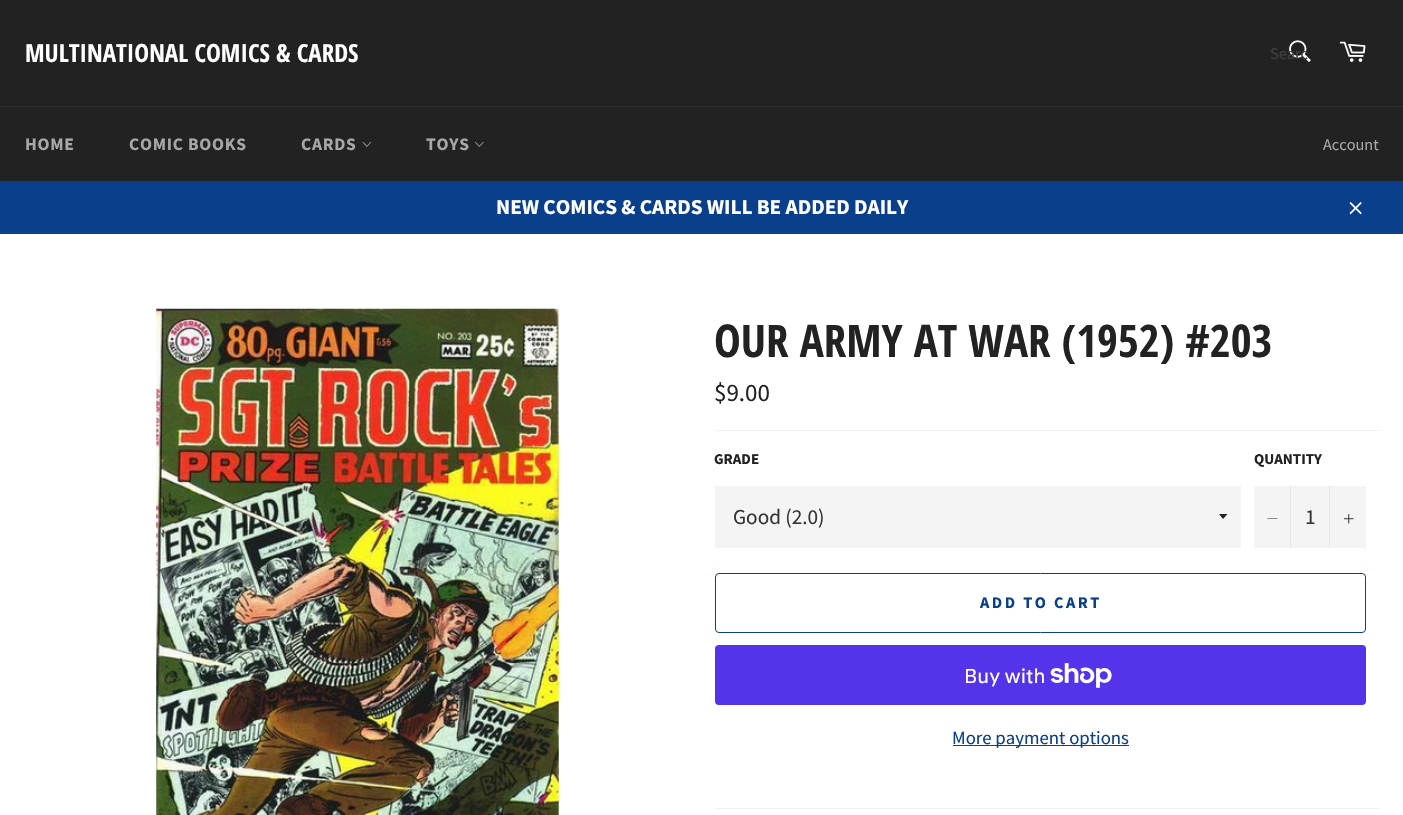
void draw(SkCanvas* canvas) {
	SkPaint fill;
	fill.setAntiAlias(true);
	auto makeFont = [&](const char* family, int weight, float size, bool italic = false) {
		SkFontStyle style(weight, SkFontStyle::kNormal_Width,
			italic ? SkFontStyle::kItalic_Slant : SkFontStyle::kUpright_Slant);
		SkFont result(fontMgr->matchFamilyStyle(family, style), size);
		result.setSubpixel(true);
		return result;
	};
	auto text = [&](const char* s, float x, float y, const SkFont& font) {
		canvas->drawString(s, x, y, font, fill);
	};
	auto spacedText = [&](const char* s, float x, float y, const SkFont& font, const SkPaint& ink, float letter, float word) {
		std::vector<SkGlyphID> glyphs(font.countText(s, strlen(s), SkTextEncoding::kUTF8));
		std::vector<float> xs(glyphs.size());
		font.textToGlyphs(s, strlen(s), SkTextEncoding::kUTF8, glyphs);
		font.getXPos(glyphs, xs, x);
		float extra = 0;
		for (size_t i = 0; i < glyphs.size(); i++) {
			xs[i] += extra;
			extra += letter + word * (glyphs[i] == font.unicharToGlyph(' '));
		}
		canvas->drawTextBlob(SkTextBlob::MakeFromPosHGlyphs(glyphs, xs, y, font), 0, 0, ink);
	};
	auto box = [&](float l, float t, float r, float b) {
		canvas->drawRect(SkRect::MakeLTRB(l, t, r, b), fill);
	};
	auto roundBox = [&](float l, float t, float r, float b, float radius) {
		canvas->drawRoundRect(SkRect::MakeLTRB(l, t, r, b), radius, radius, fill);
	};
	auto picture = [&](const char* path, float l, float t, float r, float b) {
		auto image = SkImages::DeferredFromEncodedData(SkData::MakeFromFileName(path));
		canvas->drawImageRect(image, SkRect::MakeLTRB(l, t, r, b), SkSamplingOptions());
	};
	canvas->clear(0xFF222222);
	picture("image0.png", 1289, 40, 1311, 62);
	picture("image1.png", 1339, 41, 1366, 62);
	fill.setColor(0xFF2F2F2F);
	box(0, 106, 1403, 107);
	picture("image2.png", 362, 141, 372, 147);
	picture("image3.png", 475, 141, 484, 147);
	fill.setColor(0xFF0A3F8B);
	box(0, 181, 1403, 234);
	picture("image4.png", 1349, 202, 1362, 215);
	fill.setColor(0xFFFFFFFF);
	box(0, 234, 1403, 815);
	picture("image5.png", 156, 308, 559, 815);
	fill.setColor(0xFFF0F0F0);
	box(715, 430, 1379, 431);
	fill.setColor(0xFFF4F4F4);
	box(715, 486, 1241, 548);
	fill.setColor(0xFF222222);
	canvas->drawPath(SkPathBuilder().moveTo(1219, 514).lineTo(1223, 519).lineTo(1227.5f, 514).close().detach(), fill);
	fill.setColor(0xFFF4F4F4);
	box(1254, 486, 1366, 548);
	fill.setColor(0xFFE7E7E7);
	box(1290, 486, 1291, 548);
	fill.setColor(0xFF222222);
	canvas->drawPath(SkPathBuilder(SkPathFillType::kEvenOdd).moveTo(1277.5f, 518.5f).lineTo(1277.5f, 519).lineTo(1267.5f, 519).lineTo(1267.5f, 518.5f).close().detach(), fill);
	fill.setColor(0xFFE7E7E7);
	box(1329, 486, 1330, 548);
	picture("image6.png", 1344, 514, 1354, 524);
	fill.setStyle(SkPaint::kStroke_Style);
	fill.setStrokeWidth(1);
	fill.setColor(0xFF0A3F8B);
	canvas->drawRoundRect(SkRect::MakeLTRB(715.5f, 573.5f, 1365.5f, 632.5f), 3.5f, 3.5f, fill);
	fill.setStyle(SkPaint::kFill_Style);
	fill.setColor(0xFF5433EB);
	roundBox(715, 645, 1366, 705, 4);
	picture("image7.png", 1050, 663, 1112, 688);
	fill.setColor(0xFF0A3F8B);
	box(953, 745, 1129, 746);
	fill.setColor(0xFFF0F0F0);
	box(715, 808, 1379, 809);
	auto font1 = makeFont("Open Sans Condensed", 700, 25);
	fill.setColor(0xFFFFFFFF);
	text("MULTINATIONAL COMICS & CARDS", 25, 62, font1);
	auto font2 = makeFont("Source Sans Pro", 400, 16.25f);
	fill.setColor(0xFF414141);
	text("Searc", 1270, 59, font2);
	auto font3 = makeFont("Source Sans Pro", 700, 17.5f);
	fill.setColor(0xFFA7A7A7);
	spacedText("HOME", 25, 150, font3, fill, 0.75f, 0);
	spacedText("COMIC BOOKS", 129, 150, font3, fill, 0.75f, 0);
	spacedText("CARDS", 301, 150, font3, fill, 0.75f, 0);
	spacedText("TOYS", 426, 150, font3, fill, 0.75f, 0);
	text("Account", 1323, 150, font2);
	auto font4 = makeFont("Source Sans Pro", 700, 21.25f);
	fill.setColor(0xFFFFFFFF);
	text("NEW COMICS & CARDS WILL BE ADDED DAILY", 496, 214, font4);
	auto font5 = makeFont("Open Sans Condensed", 700, 45);
	fill.setColor(0xFF222222);
	text("OUR ARMY AT WAR (1952) #203", 714, 357, font5);
	auto font6 = makeFont("Source Sans Pro", 400, 25);
	text("$9.00", 714, 401, font6);
	auto font7 = makeFont("Source Sans Pro", 700, 15);
	text("GRADE", 714, 464, font7);
	auto font8 = makeFont("Source Sans Pro", 400, 21.25f);
	fill.setColor(0xFF333333);
	text("Good (2.0)", 733, 524, font8);
	fill.setColor(0xFF222222);
	text("QUANTITY", 1254, 464, font7);
	fill.setColor(0xFF333333);
	text("1", 1305, 524, font8);
	auto font9 = makeFont("Source Sans Pro", 700, 16.25f);
	fill.setColor(0xFF0A3F8B);
	spacedText("ADD TO CART", 980, 608, font9, fill, 2.5f, 0);
	auto font10 = makeFont("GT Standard", 400, 20);
	fill.setColor(0xFFFFFFFF);
	text("Buy with", 964, 683, font10);
	auto font11 = makeFont("Source Sans Pro", 400, 18.75f);
	fill.setColor(0xFF0A3F8B);
	text("More payment options", 952, 744, font11);
}
